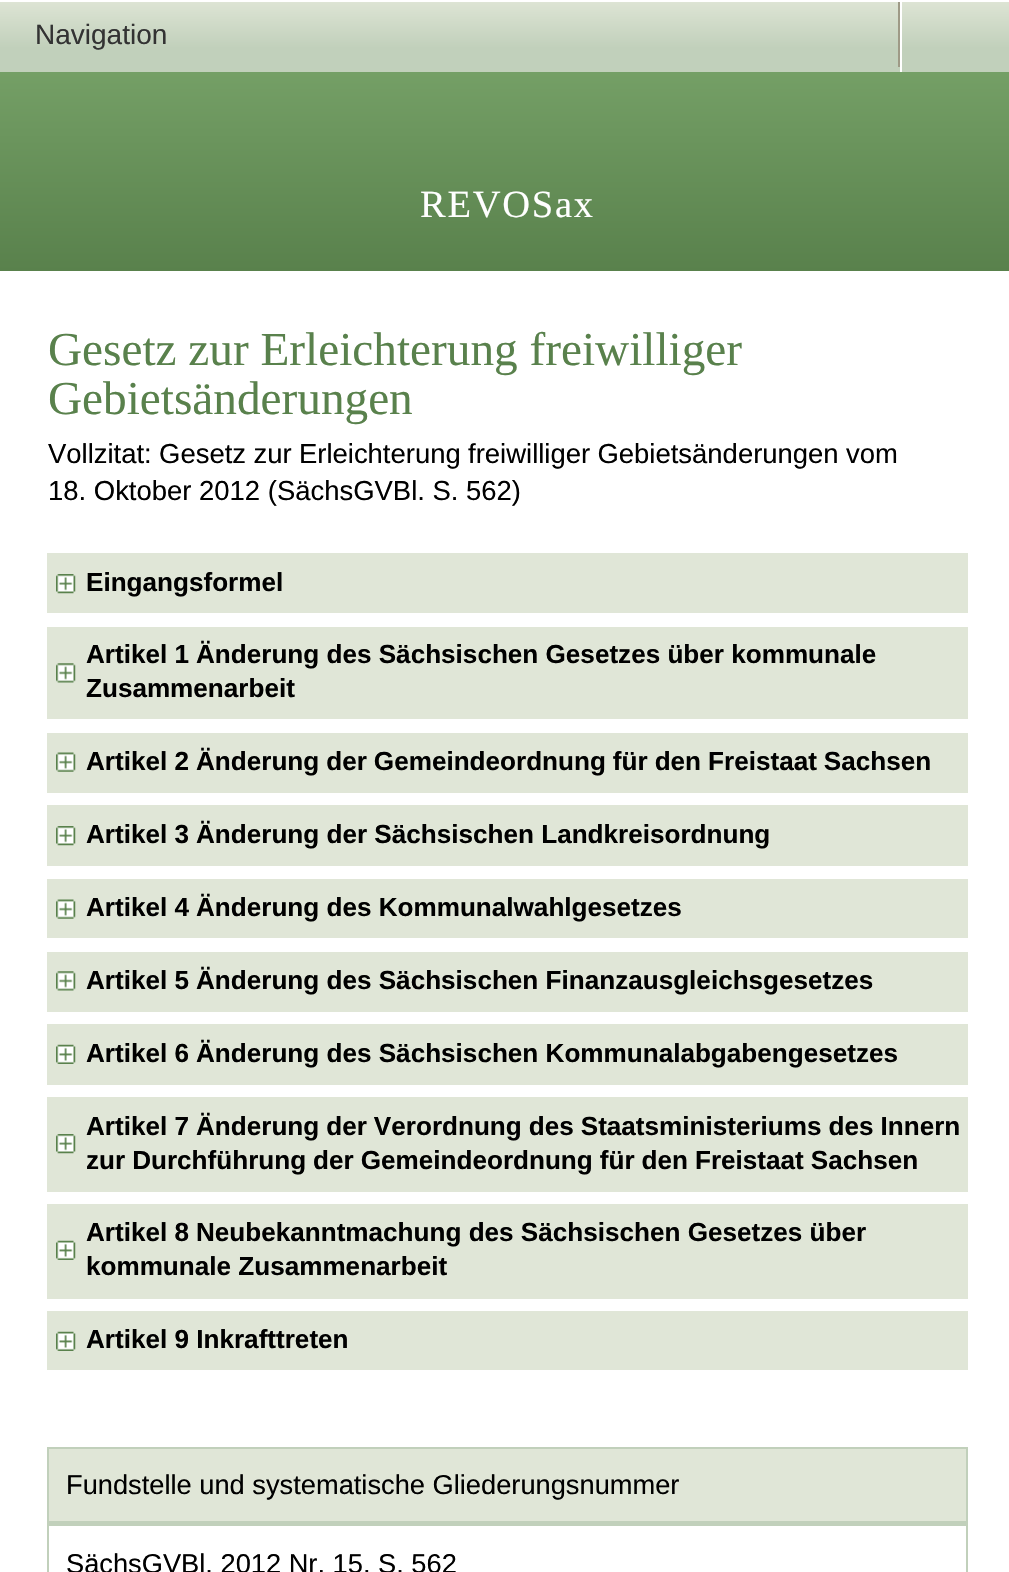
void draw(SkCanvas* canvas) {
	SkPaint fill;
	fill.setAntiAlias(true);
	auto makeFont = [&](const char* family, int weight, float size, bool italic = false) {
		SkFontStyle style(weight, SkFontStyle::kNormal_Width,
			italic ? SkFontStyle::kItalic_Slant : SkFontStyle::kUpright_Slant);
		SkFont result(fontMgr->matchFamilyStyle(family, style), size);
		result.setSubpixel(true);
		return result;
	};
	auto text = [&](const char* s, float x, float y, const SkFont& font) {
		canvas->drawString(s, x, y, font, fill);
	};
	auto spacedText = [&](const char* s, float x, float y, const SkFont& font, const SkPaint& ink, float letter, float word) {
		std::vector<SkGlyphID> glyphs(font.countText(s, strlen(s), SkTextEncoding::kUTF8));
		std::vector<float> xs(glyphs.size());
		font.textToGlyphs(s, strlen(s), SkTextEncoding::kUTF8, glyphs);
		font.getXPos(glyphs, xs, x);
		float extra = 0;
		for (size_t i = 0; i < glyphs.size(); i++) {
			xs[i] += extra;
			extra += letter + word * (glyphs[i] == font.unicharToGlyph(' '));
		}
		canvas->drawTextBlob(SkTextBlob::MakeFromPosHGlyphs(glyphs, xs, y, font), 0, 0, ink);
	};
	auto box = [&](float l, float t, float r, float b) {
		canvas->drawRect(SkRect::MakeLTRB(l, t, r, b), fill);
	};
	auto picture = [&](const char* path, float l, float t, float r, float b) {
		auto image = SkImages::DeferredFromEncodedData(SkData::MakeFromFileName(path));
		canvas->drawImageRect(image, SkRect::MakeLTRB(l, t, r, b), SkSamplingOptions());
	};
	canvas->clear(0xFFFFFFFF);
	{
		const SkColor colors[] = {0xFF7EAA6F, 0xFF59814C};
		const float stops[] = {0, 1};
		const SkPoint ends[] = {{487, 0}, {487, 271}};
		fill.setShader(SkGradientShader::MakeLinear(ends, colors, stops, 2, SkTileMode::kClamp));
		fill.setAlpha(255);
	}
	box(0, 72, 1009, 271);
	{
		const SkColor colors[] = {0xFFDDE4D4, 0xFFC1D0BB, 0xFFC1D0BB};
		const float stops[] = {0, 0.66f, 1};
		const SkPoint ends[] = {{505, 1.7f}, {505, 72}};
		fill.setShader(SkGradientShader::MakeLinear(ends, colors, stops, 3, SkTileMode::kClamp));
		fill.setAlpha(255);
	}
	box(0, 2, 1009, 72);
	fill.setShader(nullptr);
	fill.setColor(0xFF9E9A86);
	box(898, 2, 900, 67);
	fill.setColor(0xFFFFFFFF);
	box(900, 2, 902, 72);
	fill.setColor(0xFFE0E6D7);
	box(47, 553, 968, 613);
	picture("image0.png", 56, 574, 76, 594);
	box(47, 627, 968, 719);
	picture("image1.png", 56, 663, 76, 683);
	box(47, 733, 968, 793);
	picture("image2.png", 56, 752, 76, 772);
	box(47, 805, 968, 866);
	picture("image0.png", 56, 826, 76, 846);
	box(47, 879, 968, 938);
	picture("image2.png", 56, 899, 76, 919);
	box(47, 952, 968, 1012);
	picture("image1.png", 56, 971, 76, 991);
	box(47, 1024, 968, 1085);
	picture("image3.png", 56, 1044, 76, 1064);
	box(47, 1097, 968, 1192);
	picture("image0.png", 56, 1134, 76, 1154);
	box(47, 1204, 968, 1299);
	picture("image3.png", 56, 1240, 76, 1260);
	box(47, 1311, 968, 1370);
	picture("image3.png", 56, 1331, 76, 1351);
	fill.setStyle(SkPaint::kStroke_Style);
	fill.setStrokeWidth(2);
	fill.setColor(0xFFC1D0BB);
	canvas->drawRect(SkRect::MakeLTRB(48, 1448, 967, 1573), fill);
	fill.setStyle(SkPaint::kFill_Style);
	fill.setColor(0xFFE0E6D7);
	box(49, 1449, 966, 1521);
	fill.setColor(0xFFC1D0BB);
	box(49, 1521, 966, 1526);
	auto font1 = makeFont("Liberation Sans", 400, 28);
	fill.setColor(0xFF333333);
	text("Navigation", 35, 44, font1);
	auto font2 = makeFont("Liberation Serif", 400, 38.5f);
	fill.setColor(0xFFFFFFFF);
	spacedText("REVOSax", 420, 217, font2, fill, 1.75f, 0);
	auto font3 = makeFont("Liberation Serif", 400, 47.25f);
	fill.setColor(0xFF59814C);
	text("Gesetz zur Erleichterung freiwilliger", 48, 365, font3);
	text("Gebietsänderungen", 48, 414, font3);
	auto font4 = makeFont("Liberation Sans", 400, 27.45f);
	fill.setColor(0xFF000000);
	spacedText("Vollzitat: Gesetz zur Erleichterung freiwilliger Gebietsänderungen vom", 48, 463, font4, fill, 0, -0.25f);
	text("18. Oktober 2012 (SächsGVBl. S. 562)", 48, 500, font4);
	auto font5 = makeFont("Liberation Sans", 700, 26.1f);
	text("Eingangsformel", 86, 591, font5);
	text("Artikel 1", 86, 663, font5);
	text("Änderung des Sächsischen Gesetzes über kommunale", 196, 663, font5);
	text("Zusammenarbeit", 86, 697, font5);
	text("Artikel 2", 86, 770, font5);
	spacedText("Änderung der Gemeindeordnung für den Freistaat Sachsen", 196, 770, font5, fill, 0, -0.25f);
	text("Artikel 3", 86, 843, font5);
	text("Änderung der Sächsischen Landkreisordnung", 196, 843, font5);
	text("Artikel 4", 86, 916, font5);
	text("Änderung des Kommunalwahlgesetzes", 196, 916, font5);
	text("Artikel 5", 86, 989, font5);
	text("Änderung des Sächsischen Finanzausgleichsgesetzes", 196, 989, font5);
	text("Artikel 6", 86, 1062, font5);
	text("Änderung des Sächsischen Kommunalabgabengesetzes", 196, 1062, font5);
	text("Artikel 7", 86, 1135, font5);
	spacedText("Änderung der Verordnung des Staatsministeriums des Innern", 196, 1135, font5, fill, 0, -0.25f);
	spacedText("zur Durchführung der Gemeindeordnung für den Freistaat Sachsen", 86, 1169, font5, fill, 0, -0.25f);
	text("Artikel 8", 86, 1241, font5);
	text("Neubekanntmachung des Sächsischen Gesetzes über", 196, 1241, font5);
	text("kommunale Zusammenarbeit", 86, 1275, font5);
	text("Artikel 9 Inkrafttreten", 86, 1348, font5);
	auto font6 = makeFont("Liberation Sans", 400, 27.25f);
	text("Fundstelle und systematische Gliederungsnummer", 66, 1494, font6);
	text("SächsGVBl. 2012 Nr. 15, S. 562", 66, 1573, font6);
}
